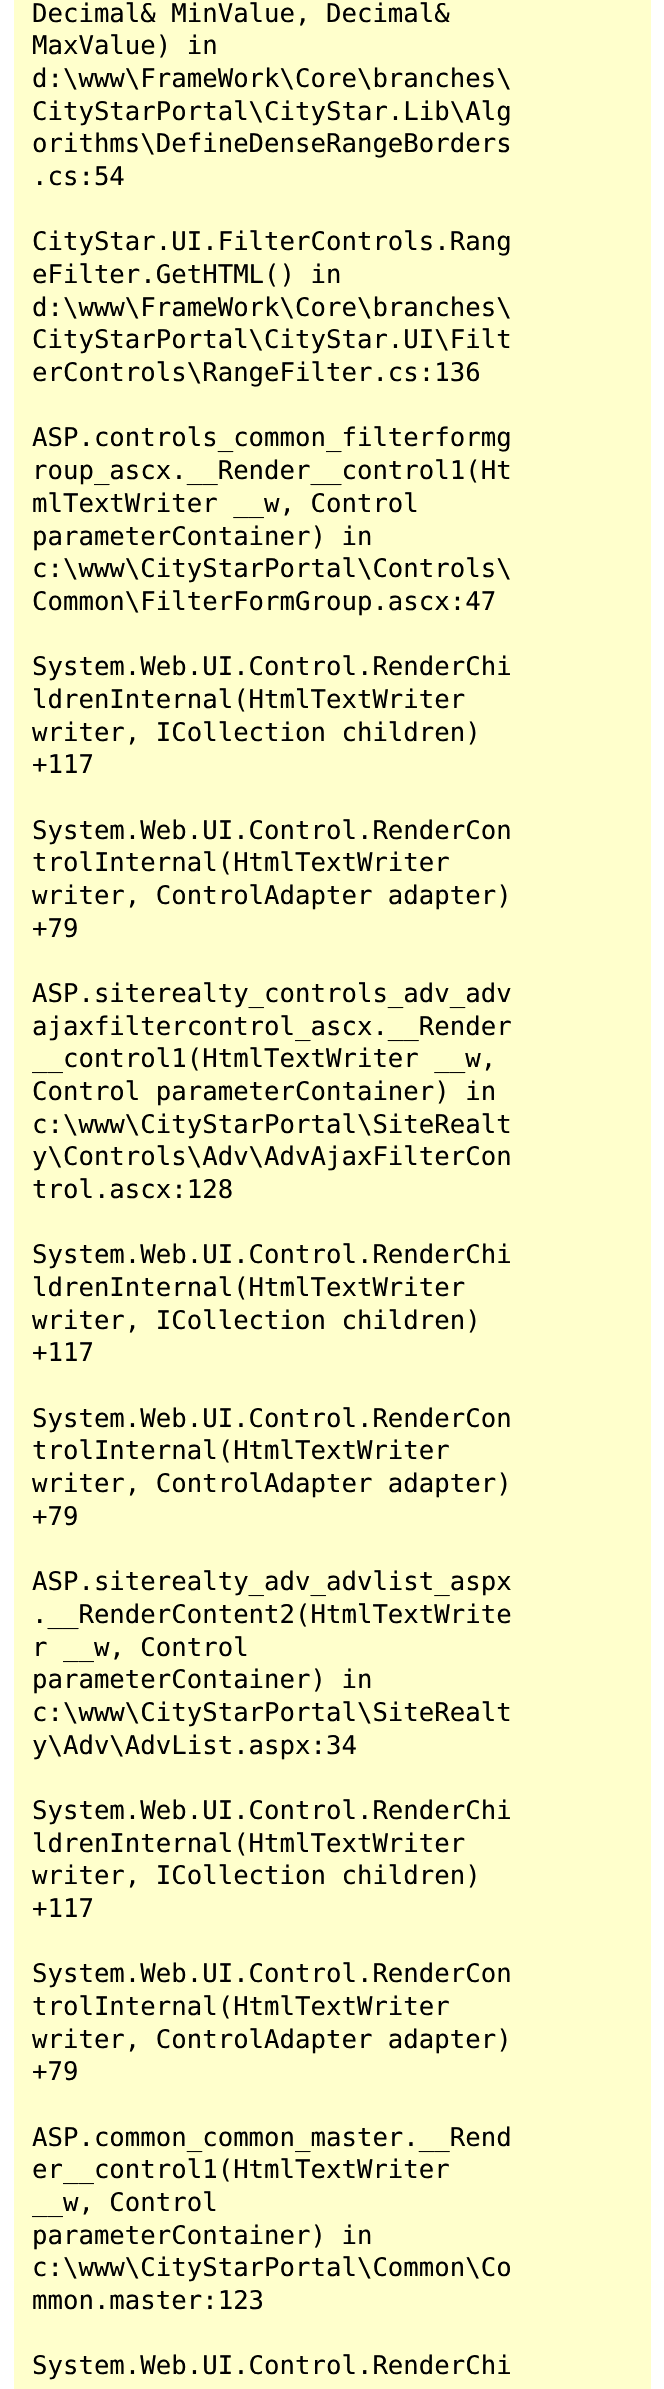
void draw(SkCanvas* canvas) {
	SkPaint fill;
	fill.setAntiAlias(true);
	auto makeFont = [&](const char* family, int weight, float size, bool italic = false) {
		SkFontStyle style(weight, SkFontStyle::kNormal_Width,
			italic ? SkFontStyle::kItalic_Slant : SkFontStyle::kUpright_Slant);
		SkFont result(fontMgr->matchFamilyStyle(family, style), size);
		result.setSubpixel(true);
		return result;
	};
	auto text = [&](const char* s, float x, float y, const SkFont& font) {
		canvas->drawString(s, x, y, font, fill);
	};
	auto box = [&](float l, float t, float r, float b) {
		canvas->drawRect(SkRect::MakeLTRB(l, t, r, b), fill);
	};
	canvas->clear(0xFFFFFFFF);
	fill.setColor(0xFFFFFFCC);
	box(14, 0, 651, 2389);
	auto font1 = makeFont("DejaVu Sans Mono", 400, 25.7f);
	fill.setColor(0xFF000000);
	text("Decimal& MinValue, Decimal&", 32, 22, font1);
	text("MaxValue) in", 32, 54, font1);
	text("d:\\www\\FrameWork\\Core\\branches\\", 32, 87, font1);
	text("CityStarPortal\\CityStar.Lib\\Alg", 32, 120, font1);
	text("orithms\\DefineDenseRangeBorders", 32, 152, font1);
	text(".cs:54", 32, 185, font1);
	text("CityStar.UI.FilterControls.Rang", 32, 250, font1);
	text("eFilter.GetHTML() in", 32, 283, font1);
	text("d:\\www\\FrameWork\\Core\\branches\\", 32, 316, font1);
	text("CityStarPortal\\CityStar.UI\\Filt", 32, 348, font1);
	text("erControls\\RangeFilter.cs:136", 32, 381, font1);
	text("ASP.controls_common_filterformg", 32, 446, font1);
	text("roup_ascx.__Render__control1(Ht", 32, 479, font1);
	text("mlTextWriter __w, Control", 32, 512, font1);
	text("parameterContainer) in", 32, 545, font1);
	text("c:\\www\\CityStarPortal\\Controls\\", 32, 577, font1);
	text("Common\\FilterFormGroup.ascx:47", 32, 610, font1);
	text("System.Web.UI.Control.RenderChi", 32, 675, font1);
	text("ldrenInternal(HtmlTextWriter", 32, 708, font1);
	text("writer, ICollection children)", 32, 741, font1);
	text("+117", 32, 773, font1);
	text("System.Web.UI.Control.RenderCon", 32, 839, font1);
	text("trolInternal(HtmlTextWriter", 32, 871, font1);
	text("writer, ControlAdapter adapter)", 32, 904, font1);
	text("+79", 32, 937, font1);
	text("ASP.siterealty_controls_adv_adv", 32, 1002, font1);
	text("ajaxfiltercontrol_ascx.__Render", 32, 1035, font1);
	text("__control1(HtmlTextWriter __w,", 32, 1067, font1);
	text("Control parameterContainer) in", 32, 1100, font1);
	text("c:\\www\\CityStarPortal\\SiteRealt", 32, 1133, font1);
	text("y\\Controls\\Adv\\AdvAjaxFilterCon", 32, 1165, font1);
	text("trol.ascx:128", 32, 1198, font1);
	text("System.Web.UI.Control.RenderChi", 32, 1263, font1);
	text("ldrenInternal(HtmlTextWriter", 32, 1296, font1);
	text("writer, ICollection children)", 32, 1329, font1);
	text("+117", 32, 1361, font1);
	text("System.Web.UI.Control.RenderCon", 32, 1427, font1);
	text("trolInternal(HtmlTextWriter", 32, 1459, font1);
	text("writer, ControlAdapter adapter)", 32, 1492, font1);
	text("+79", 32, 1525, font1);
	text("ASP.siterealty_adv_advlist_aspx", 32, 1590, font1);
	text(".__RenderContent2(HtmlTextWrite", 32, 1623, font1);
	text("r __w, Control", 32, 1656, font1);
	text("parameterContainer) in", 32, 1688, font1);
	text("c:\\www\\CityStarPortal\\SiteRealt", 32, 1721, font1);
	text("y\\Adv\\AdvList.aspx:34", 32, 1754, font1);
	text("System.Web.UI.Control.RenderChi", 32, 1819, font1);
	text("ldrenInternal(HtmlTextWriter", 32, 1852, font1);
	text("writer, ICollection children)", 32, 1884, font1);
	text("+117", 32, 1917, font1);
	text("System.Web.UI.Control.RenderCon", 32, 1982, font1);
	text("trolInternal(HtmlTextWriter", 32, 2015, font1);
	text("writer, ControlAdapter adapter)", 32, 2048, font1);
	text("+79", 32, 2080, font1);
	text("ASP.common_common_master.__Rend", 32, 2146, font1);
	text("er__control1(HtmlTextWriter", 32, 2178, font1);
	text("__w, Control", 32, 2211, font1);
	text("parameterContainer) in", 32, 2244, font1);
	text("c:\\www\\CityStarPortal\\Common\\Co", 32, 2276, font1);
	text("mmon.master:123", 32, 2309, font1);
	text("System.Web.UI.Control.RenderChi", 32, 2374, font1);
}
